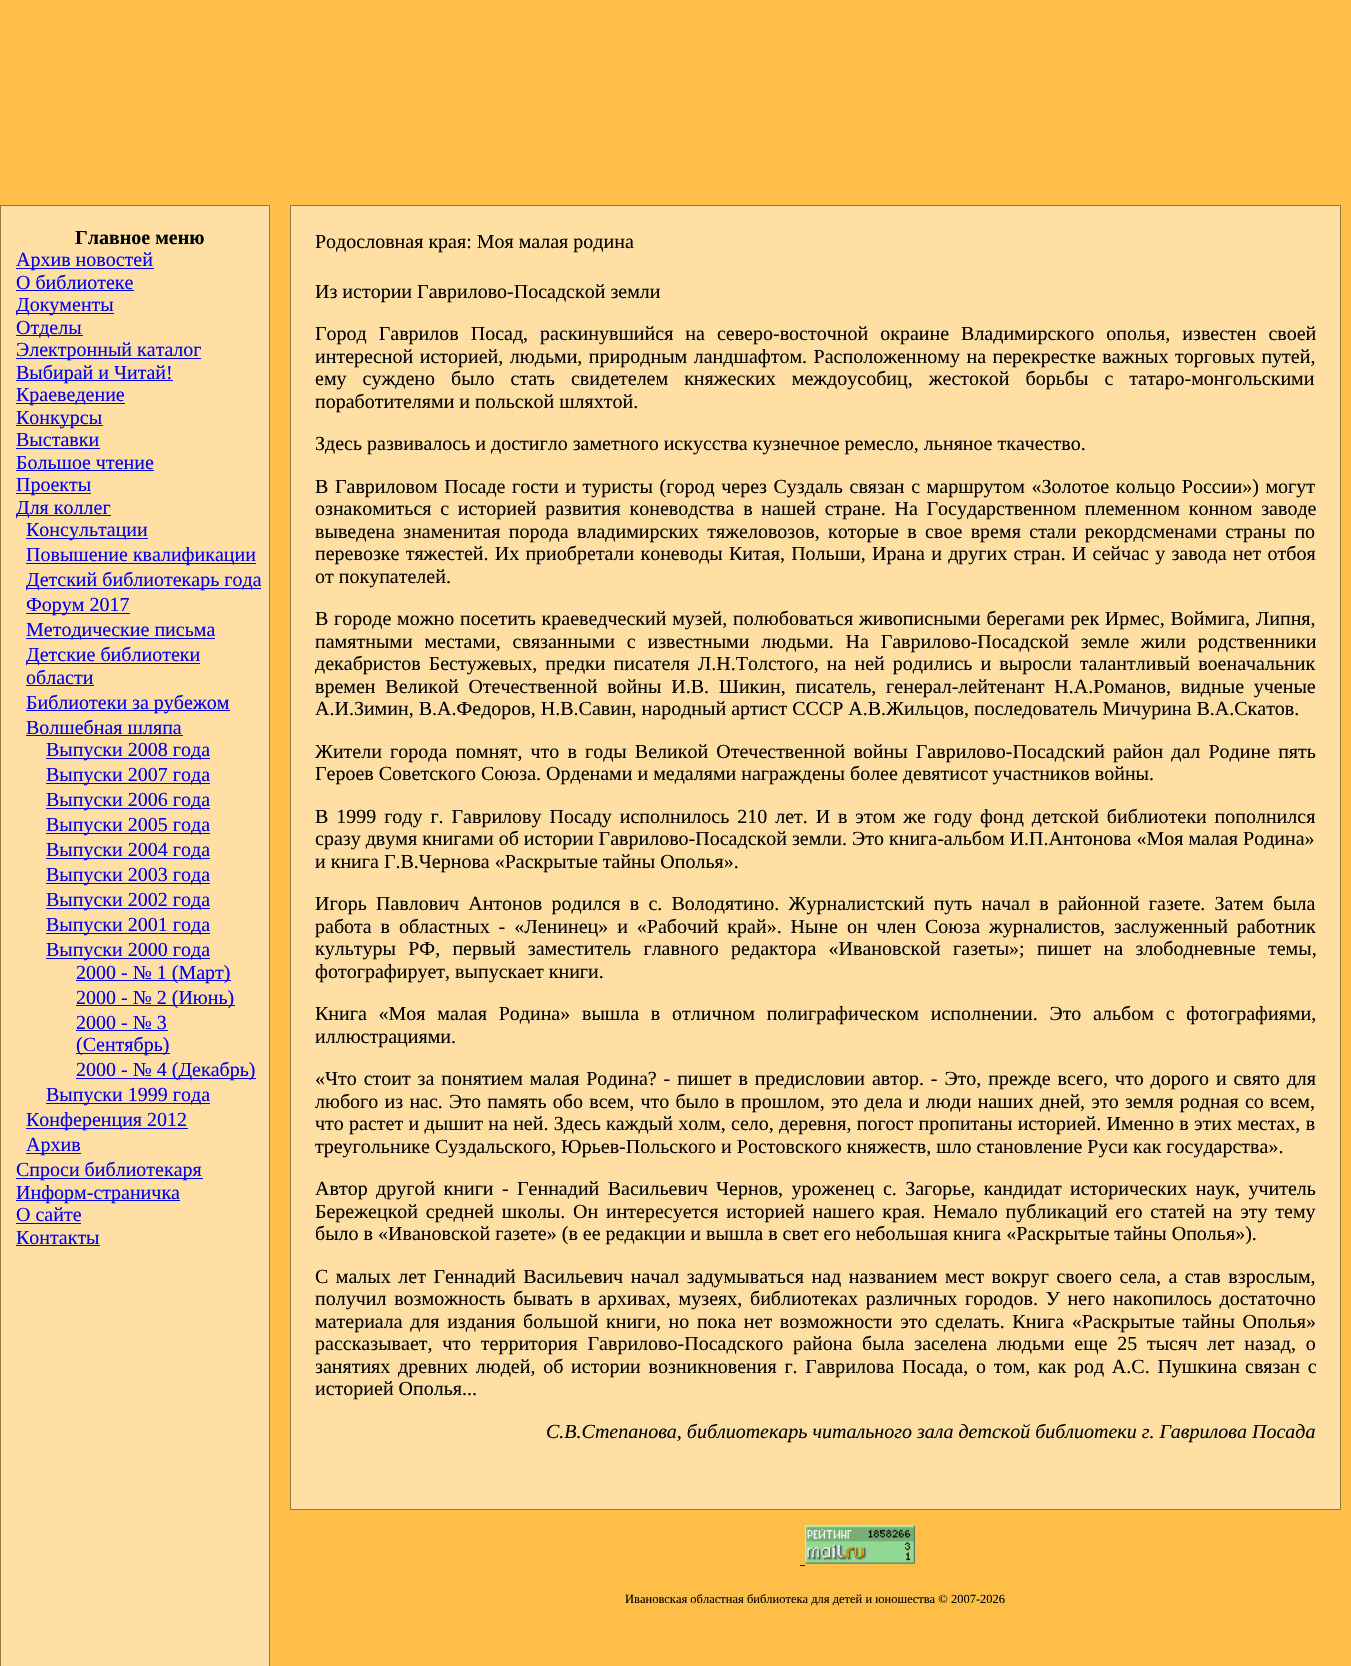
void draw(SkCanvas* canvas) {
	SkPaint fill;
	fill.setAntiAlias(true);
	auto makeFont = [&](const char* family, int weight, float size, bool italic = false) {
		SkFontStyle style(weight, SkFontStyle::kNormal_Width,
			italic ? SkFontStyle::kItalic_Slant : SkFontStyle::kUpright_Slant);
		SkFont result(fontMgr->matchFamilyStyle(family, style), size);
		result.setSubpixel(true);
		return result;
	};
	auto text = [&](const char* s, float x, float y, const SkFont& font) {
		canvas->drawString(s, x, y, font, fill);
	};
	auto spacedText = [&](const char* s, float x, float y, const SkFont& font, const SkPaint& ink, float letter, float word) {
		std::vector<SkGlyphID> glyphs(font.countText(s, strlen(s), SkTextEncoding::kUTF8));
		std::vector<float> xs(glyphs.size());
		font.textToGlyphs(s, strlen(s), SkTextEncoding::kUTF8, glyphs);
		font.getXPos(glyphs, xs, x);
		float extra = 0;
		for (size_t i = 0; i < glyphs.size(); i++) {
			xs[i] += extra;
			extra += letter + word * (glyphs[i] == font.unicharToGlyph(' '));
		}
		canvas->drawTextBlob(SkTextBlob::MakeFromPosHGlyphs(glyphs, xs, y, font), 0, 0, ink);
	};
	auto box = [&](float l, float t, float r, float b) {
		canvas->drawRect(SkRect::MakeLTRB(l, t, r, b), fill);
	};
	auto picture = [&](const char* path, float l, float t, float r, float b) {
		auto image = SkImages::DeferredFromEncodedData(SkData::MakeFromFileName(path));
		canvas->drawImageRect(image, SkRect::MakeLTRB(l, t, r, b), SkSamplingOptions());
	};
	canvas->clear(0xFFFFBE48);
	fill.setColor(0xFFFFDFA4);
	canvas->drawRect(SkRect::MakeLTRB(0.5f, 205.5f, 269.5f, 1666.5f), fill);
	fill.setStyle(SkPaint::kStroke_Style);
	fill.setStrokeWidth(1);
	fill.setColor(0xFF997545);
	canvas->drawRect(SkRect::MakeLTRB(0.5f, 205.5f, 269.5f, 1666.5f), fill);
	fill.setStyle(SkPaint::kFill_Style);
	fill.setColor(0xFF0000EE);
	box(16, 268, 154, 269);
	box(16, 290, 134, 291);
	box(16, 313, 114, 314);
	box(16, 335, 83, 336);
	box(16, 358, 201, 359);
	box(16, 380, 173, 381);
	box(16, 403, 125, 404);
	box(16, 425, 103, 426);
	box(16, 448, 100, 449);
	box(16, 470, 154, 471);
	box(16, 493, 91, 494);
	box(16, 515, 111, 516);
	box(26, 538, 148, 539);
	box(26, 563, 256, 564);
	box(26, 588, 261, 589);
	box(26, 613, 130, 614);
	box(26, 638, 215, 639);
	box(26, 663, 200, 664);
	box(26, 685, 94, 686);
	box(26, 710, 230, 711);
	box(26, 735, 183, 736);
	box(46, 758, 210, 759);
	box(46, 783, 210, 784);
	box(46, 808, 210, 809);
	box(46, 833, 210, 834);
	box(46, 858, 210, 859);
	box(46, 883, 210, 884);
	box(46, 908, 210, 909);
	box(46, 933, 210, 934);
	box(46, 958, 210, 959);
	box(76, 980, 231, 981);
	box(76, 1005, 235, 1006);
	box(76, 1030, 168, 1031);
	box(76, 1053, 170, 1054);
	box(76, 1078, 256, 1079);
	box(46, 1103, 210, 1104);
	box(26, 1128, 188, 1129);
	box(26, 1153, 81, 1154);
	box(16, 1178, 203, 1179);
	box(16, 1200, 180, 1201);
	box(16, 1223, 81, 1224);
	box(16, 1245, 100, 1246);
	fill.setColor(0xFFFFDFA4);
	canvas->drawRect(SkRect::MakeLTRB(290.5f, 205.5f, 1340.5f, 1509.5f), fill);
	fill.setStyle(SkPaint::kStroke_Style);
	fill.setColor(0xFF997545);
	canvas->drawRect(SkRect::MakeLTRB(290.5f, 205.5f, 1340.5f, 1509.5f), fill);
	picture("image0.png", 805, 1525, 915, 1564);
	fill.setStyle(SkPaint::kFill_Style);
	fill.setColor(0xFF0000EE);
	box(800, 1565, 805, 1566);
	auto font1 = makeFont("Liberation Serif", 700, 20);
	fill.setColor(0xFF000000);
	text("Главное меню", 75, 244, font1);
	auto font2 = makeFont("Liberation Serif", 400, 20);
	fill.setColor(0xFF0000EE);
	text("Архив новостей", 16, 266, font2);
	text("О библиотеке", 16, 289, font2);
	text("Документы", 16, 311, font2);
	text("Отделы", 16, 334, font2);
	text("Электронный каталог", 16, 356, font2);
	text("Выбирай и Читай!", 16, 379, font2);
	text("Краеведение", 16, 401, font2);
	text("Конкурсы", 16, 424, font2);
	text("Выставки", 16, 446, font2);
	text("Большое чтение", 16, 469, font2);
	text("Проекты", 16, 491, font2);
	text("Для коллег", 16, 514, font2);
	text("Консультации", 26, 536, font2);
	text("Повышение квалификации", 26, 561, font2);
	text("Детский библиотекарь года", 26, 586, font2);
	text("Форум 2017", 26, 611, font2);
	text("Методические письма", 26, 636, font2);
	text("Детские библиотеки", 26, 661, font2);
	text("области", 26, 684, font2);
	text("Библиотеки за рубежом", 26, 709, font2);
	text("Волшебная шляпа", 26, 734, font2);
	text("Выпуски 2008 года", 46, 756, font2);
	text("Выпуски 2007 года", 46, 781, font2);
	text("Выпуски 2006 года", 46, 806, font2);
	text("Выпуски 2005 года", 46, 831, font2);
	text("Выпуски 2004 года", 46, 856, font2);
	text("Выпуски 2003 года", 46, 881, font2);
	text("Выпуски 2002 года", 46, 906, font2);
	text("Выпуски 2001 года", 46, 931, font2);
	text("Выпуски 2000 года", 46, 956, font2);
	text("2000 - № 1 (Март)", 76, 979, font2);
	text("2000 - № 2 (Июнь)", 76, 1004, font2);
	text("2000 - № 3", 76, 1029, font2);
	text("(Сентябрь)", 76, 1051, font2);
	text("2000 - № 4 (Декабрь)", 76, 1076, font2);
	text("Выпуски 1999 года", 46, 1101, font2);
	text("Конференция 2012", 26, 1126, font2);
	text("Архив", 26, 1151, font2);
	text("Спроси библиотекаря", 16, 1176, font2);
	text("Информ-страничка", 16, 1199, font2);
	text("О сайте", 16, 1221, font2);
	text("Контакты", 16, 1244, font2);
	fill.setColor(0xFF000000);
	text("Родословная края: Моя малая родина", 315, 248, font2);
	text("Из истории Гаврилово-Посадской земли", 315, 298, font2);
	spacedText("Город Гаврилов Посад, раскинувшийся на северо-восточной окраине Владимирского ополья, известен своей", 315, 340, font2, fill, 0, 7);
	spacedText("интересной историей, людьми, природным ландшафтом. Расположенному на перекрестке важных торговых путей,", 315, 363, font2, fill, 0, 1.5f);
	spacedText("ему суждено было стать свидетелем княжеских междоусобиц, жестокой борьбы с татаро-монгольскими", 315, 385, font2, fill, 0, 11);
	text("поработителями и польской шляхтой.", 315, 408, font2);
	text("Здесь развивалось и достигло заметного искусства кузнечное ремесло, льняное ткачество.", 315, 450, font2);
	spacedText("В Гавриловом Посаде гости и туристы (город через Суздаль связан с маршрутом «Золотое кольцо России») могут", 315, 493, font2, fill, 0, 1.6f);
	spacedText("ознакомиться с историей развития коневодства в нашей стране. На Государственном племенном конном заводе", 315, 515, font2, fill, 0, 3.75f);
	spacedText("выведена знаменитая порода владимирских тяжеловозов, которые в свое время стали рекордсменами страны по", 315, 538, font2, fill, 0, 3.4f);
	spacedText("перевозке тяжестей. Их приобретали коневоды Китая, Польши, Ирана и других стран. И сейчас у завода нет отбоя", 315, 560, font2, fill, 0, 1.25f);
	text("от покупателей.", 315, 583, font2);
	spacedText("В городе можно посетить краеведческий музей, полюбоваться живописными берегами рек Ирмес, Воймига, Липня,", 315, 625, font2, fill, 0, 0.75f);
	spacedText("памятными местами, связанными с известными людьми. На Гаврилово-Посадской земле жили родственники", 315, 648, font2, fill, 0, 6.75f);
	spacedText("декабристов Бестужевых, предки писателя Л.Н.Толстого, на ней родились и выросли талантливый военачальник", 315, 670, font2, fill, 0, 3.1f);
	spacedText("времен Великой Отечественной войны И.В. Шикин, писатель, генерал-лейтенант Н.А.Романов, видные ученые", 315, 693, font2, fill, 0, 4.75f);
	text("А.И.Зимин, В.А.Федоров, Н.В.Савин, народный артист СССР А.В.Жильцов, последователь Мичурина В.А.Скатов.", 315, 715, font2);
	spacedText("Жители города помнят, что в годы Великой Отечественной войны Гаврилово-Посадский район дал Родине пять", 315, 758, font2, fill, 0, 3.1f);
	text("Героев Советского Союза. Орденами и медалями награждены более девятисот участников войны.", 315, 780, font2);
	spacedText("В 1999 году г. Гаврилову Посаду исполнилось 210 лет. И в этом же году фонд детской библиотеки пополнился", 315, 823, font2, fill, 0, 2.9f);
	text("сразу двумя книгами об истории Гаврилово-Посадской земли. Это книга-альбом И.П.Антонова «Моя малая Родина»", 315, 845, font2);
	text("и книга Г.В.Чернова «Раскрытые тайны Ополья».", 315, 868, font2);
	spacedText("Игорь Павлович Антонов родился в с. Володятино. Журналистский путь начал в районной газете. Затем была", 315, 910, font2, fill, 0, 4.25f);
	spacedText("работа в областных - «Ленинец» и «Рабочий край». Ныне он член Союза журналистов, заслуженный работник", 315, 933, font2, fill, 0, 3.9f);
	spacedText("культуры РФ, первый заместитель главного редактора «Ивановской газеты»; пишет на злободневные темы,", 315, 955, font2, fill, 0, 7.25f);
	text("фотографирует, выпускает книги.", 315, 978, font2);
	spacedText("Книга «Моя малая Родина» вышла в отличном полиграфическом исполнении. Это альбом с фотографиями,", 315, 1020, font2, fill, 0, 6.75f);
	text("иллюстрациями.", 315, 1043, font2);
	spacedText("«Что стоит за понятием малая Родина? - пишет в предисловии автор. - Это, прежде всего, что дорого и свято для", 315, 1085, font2, fill, 0, 1.9f);
	spacedText("любого из нас. Это память обо всем, что было в прошлом, это дела и люди наших дней, это земля родная со всем,", 315, 1108, font2, fill, 0, 1.25f);
	spacedText("что растет и дышит на ней. Здесь каждый холм, село, деревня, погост пропитаны историей. Именно в этих местах, в", 315, 1130, font2, fill, 0, 0.3f);
	text("треугольнике Суздальского, Юрьев-Польского и Ростовского княжеств, шло становление Руси как государства».", 315, 1153, font2);
	spacedText("Автор другой книги - Геннадий Васильевич Чернов, уроженец с. Загорье, кандидат исторических наук, учитель", 315, 1195, font2, fill, 0, 3.4f);
	spacedText("Бережецкой средней школы. Он интересуется историей нашего края. Немало публикаций его статей на эту тему", 315, 1218, font2, fill, 0, 2.75f);
	text("было в «Ивановской газете» (в ее редакции и вышла в свет его небольшая книга «Раскрытые тайны Ополья»).", 315, 1240, font2);
	spacedText("С малых лет Геннадий Васильевич начал задумываться над названием мест вокруг своего села, а став взрослым,", 315, 1283, font2, fill, 0, 2.5f);
	spacedText("получил возможность бывать в архивах, музеях, библиотеках различных городов. У него накопилось достаточно", 315, 1305, font2, fill, 0, 2.75f);
	spacedText("материала для издания большой книги, но пока нет возможности это сделать. Книга «Раскрытые тайны Ополья»", 315, 1328, font2, fill, 0, 2.6f);
	spacedText("рассказывает, что территория Гаврилово-Посадского района была заселена людьми еще 25 тысяч лет назад, о", 315, 1350, font2, fill, 0, 4.75f);
	spacedText("занятиях древних людей, об истории возникновения г. Гаврилова Посада, о том, как род А.С. Пушкина связан с", 315, 1373, font2, fill, 0, 2.75f);
	text("историей Ополья...", 315, 1395, font2);
	auto font3 = makeFont("Liberation Serif", 400, 20, true);
	text("С.В.Степанова, библиотекарь читального зала детской библиотеки г. Гаврилова Посада", 546, 1438, font3);
	auto font4 = makeFont("Liberation Serif", 400, 12.5f);
	text("Ивановская областная библиотека для детей и юношества © 2007-2026", 625, 1603, font4);
}
